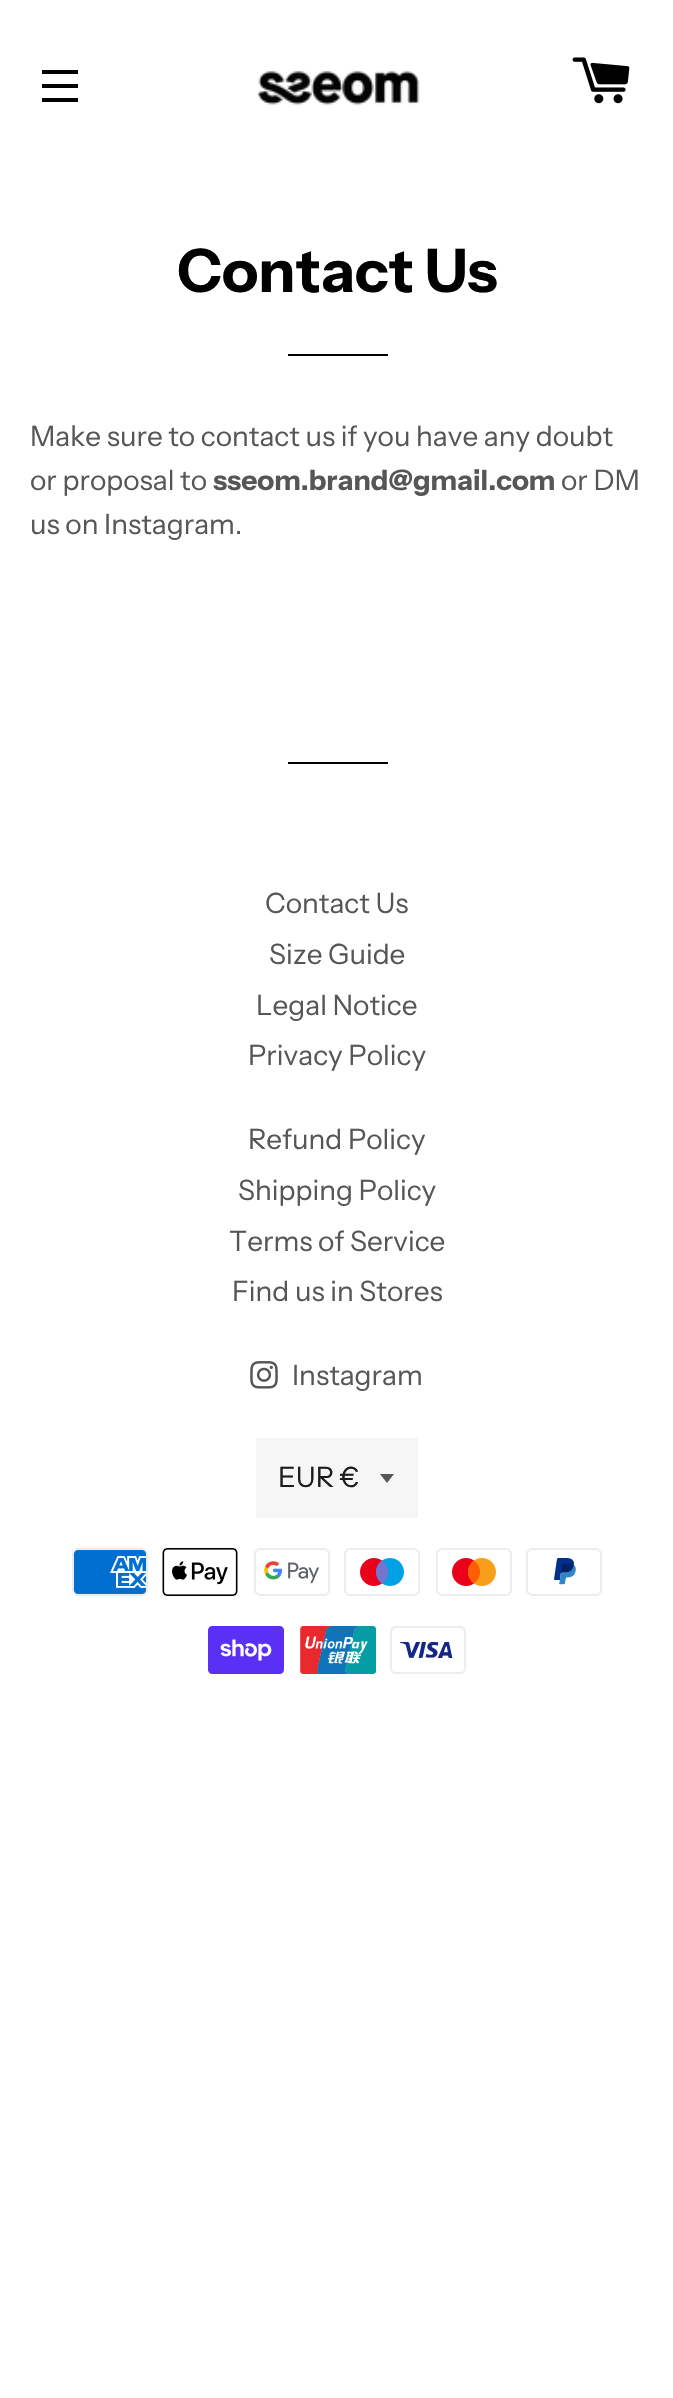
void draw(SkCanvas* canvas) {
	SkPaint fill;
	fill.setAntiAlias(true);
	auto makeFont = [&](const char* family, int weight, float size, bool italic = false) {
		SkFontStyle style(weight, SkFontStyle::kNormal_Width,
			italic ? SkFontStyle::kItalic_Slant : SkFontStyle::kUpright_Slant);
		SkFont result(fontMgr->matchFamilyStyle(family, style), size);
		result.setSubpixel(true);
		return result;
	};
	auto text = [&](const char* s, float x, float y, const SkFont& font) {
		canvas->drawString(s, x, y, font, fill);
	};
	auto box = [&](float l, float t, float r, float b) {
		canvas->drawRect(SkRect::MakeLTRB(l, t, r, b), fill);
	};
	auto picture = [&](const char* path, float l, float t, float r, float b) {
		auto image = SkImages::DeferredFromEncodedData(SkData::MakeFromFileName(path));
		canvas->drawImageRect(image, SkRect::MakeLTRB(l, t, r, b), SkSamplingOptions());
	};
	canvas->clear(0xFFFFFFFF);
	fill.setColor(0xFF000000);
	box(42, 70, 78, 74);
	box(42, 84, 78, 88);
	box(42, 98, 78, 102);
	picture("image0.png", 257, 70, 420, 105);
	picture("image1.png", 572, 57, 630, 104);
	box(288, 354, 388, 356);
	box(288, 762, 388, 764);
	picture("image2.png", 250, 1361, 278, 1389);
	fill.setColor(0xFFF6F6F6);
	box(256, 1438, 418, 1518);
	fill.setColor(0xFF565656);
	canvas->drawPath(SkPathBuilder().moveTo(380, 1474).lineTo(387, 1483).lineTo(394, 1474).close().detach(), fill);
	picture("image3.png", 72, 1548, 148, 1596);
	picture("image4.png", 162, 1548, 238, 1596);
	picture("image5.png", 254, 1548, 330, 1596);
	picture("image6.png", 344, 1548, 420, 1596);
	picture("image7.png", 436, 1548, 512, 1596);
	picture("image8.png", 526, 1548, 602, 1596);
	picture("image9.png", 208, 1626, 284, 1674);
	picture("image10.png", 300, 1626, 376, 1674);
	picture("image11.png", 390, 1626, 466, 1674);
	auto font1 = makeFont("Instrument Sans", 700, 60);
	fill.setColor(0xFF000000);
	text("Contact Us", 177, 292, font1);
	auto font2 = makeFont("Instrument Sans", 400, 28);
	fill.setColor(0xFF565656);
	text("Make sure to contact us if you have any doubt", 30, 446, font2);
	text("or proposal to", 30, 490, font2);
	auto font3 = makeFont("Instrument Sans", 700, 28);
	text("sseom.brand@gmail.com", 213, 490, font3);
	text("or DM", 561, 490, font2);
	text("us on Instagram.", 30, 534, font2);
	text("Contact Us", 265, 913, font2);
	text("Size Guide", 269, 964, font2);
	text("Legal Notice", 256, 1015, font2);
	text("Privacy Policy", 248, 1065, font2);
	text("Refund Policy", 248, 1149, font2);
	text("Shipping Policy", 238, 1200, font2);
	text("Terms of Service", 229, 1251, font2);
	text("Find us in Stores", 232, 1301, font2);
	text("Instagram", 292, 1385, font2);
	fill.setColor(0xFF1C1D1D);
	text("EUR €", 278, 1487, font2);
}
